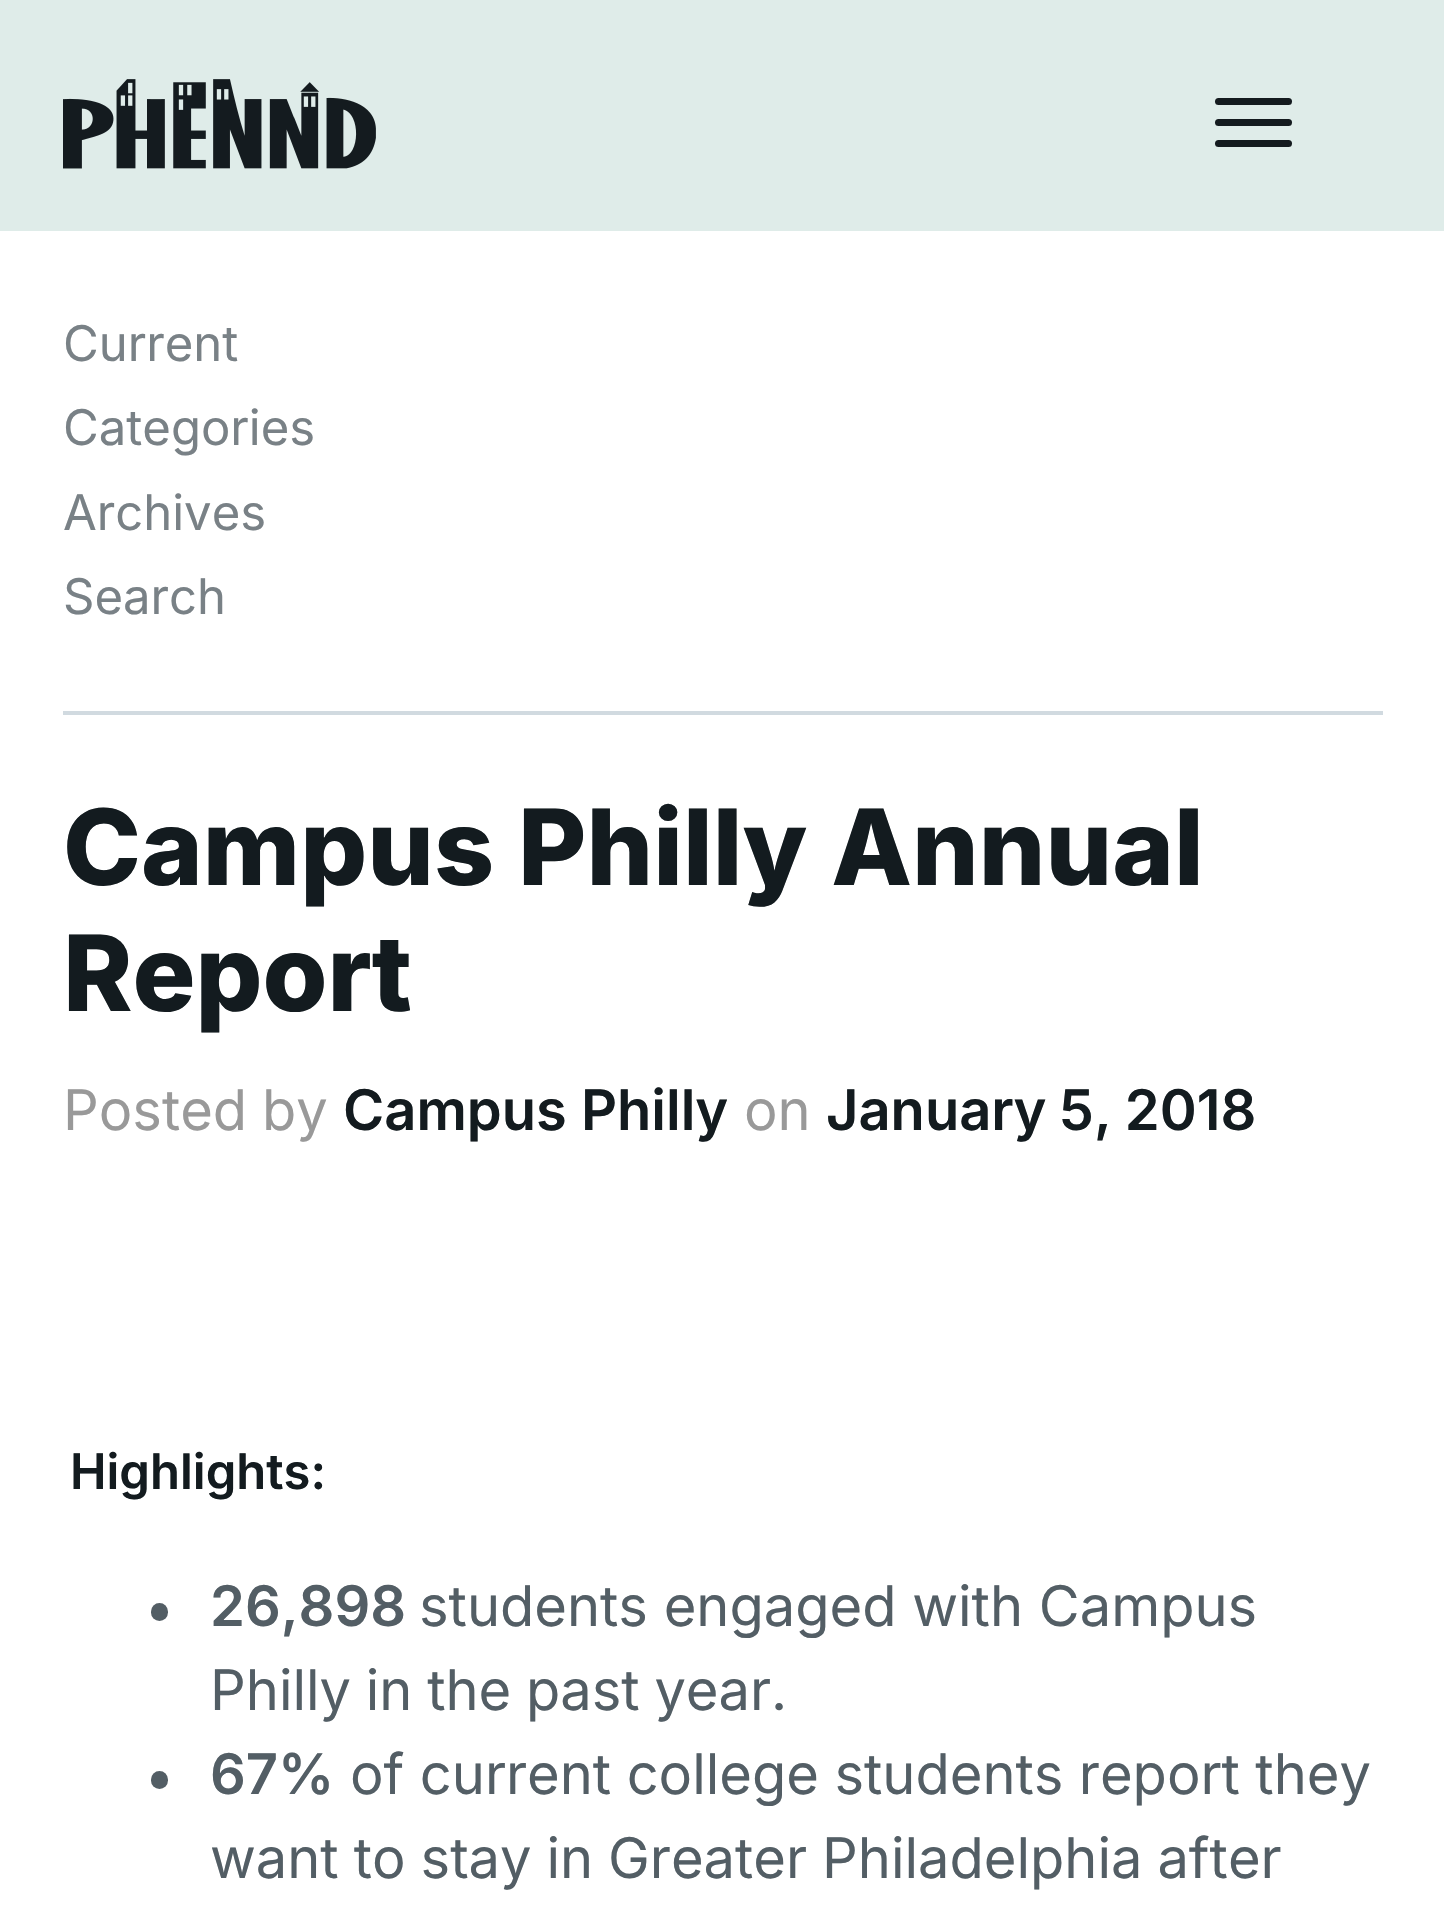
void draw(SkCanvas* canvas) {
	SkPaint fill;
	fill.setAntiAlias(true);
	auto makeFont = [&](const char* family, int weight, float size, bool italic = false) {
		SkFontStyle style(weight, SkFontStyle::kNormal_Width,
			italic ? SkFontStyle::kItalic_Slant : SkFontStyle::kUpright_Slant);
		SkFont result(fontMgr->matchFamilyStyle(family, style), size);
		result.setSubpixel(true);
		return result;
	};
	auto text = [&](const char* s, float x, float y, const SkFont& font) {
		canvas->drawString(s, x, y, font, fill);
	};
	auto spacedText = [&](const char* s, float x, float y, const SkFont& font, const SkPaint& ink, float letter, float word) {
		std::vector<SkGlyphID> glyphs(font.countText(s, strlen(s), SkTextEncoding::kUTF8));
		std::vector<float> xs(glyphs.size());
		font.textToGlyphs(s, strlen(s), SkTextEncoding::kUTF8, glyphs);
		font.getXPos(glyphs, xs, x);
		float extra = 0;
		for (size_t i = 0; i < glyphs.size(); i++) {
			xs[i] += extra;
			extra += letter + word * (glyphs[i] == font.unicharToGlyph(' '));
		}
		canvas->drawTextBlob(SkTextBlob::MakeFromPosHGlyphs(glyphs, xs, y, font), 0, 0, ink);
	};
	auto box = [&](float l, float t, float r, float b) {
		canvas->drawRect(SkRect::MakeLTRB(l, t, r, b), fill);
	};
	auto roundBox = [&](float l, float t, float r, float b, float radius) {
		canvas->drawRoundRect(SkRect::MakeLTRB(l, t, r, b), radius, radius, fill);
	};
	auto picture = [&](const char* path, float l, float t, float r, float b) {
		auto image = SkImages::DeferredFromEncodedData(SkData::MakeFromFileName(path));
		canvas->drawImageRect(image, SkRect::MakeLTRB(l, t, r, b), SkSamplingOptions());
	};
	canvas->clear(0xFFFFFFFF);
	fill.setColor(0xFFDFECE9);
	box(0, 0, 1444, 231);
	picture("image0.png", 63, 79, 376, 169);
	fill.setColor(0xFF141B1F);
	roundBox(1215, 98, 1292, 105, 3.5f);
	roundBox(1215, 119, 1292, 126, 3.5f);
	roundBox(1215, 140, 1292, 147, 3.5f);
	fill.setColor(0xFFD1DAE0);
	box(63, 711, 1383, 715);
	fill.setColor(0xFF535E65);
	roundBox(151, 1603, 168, 1621, 8.5f);
	roundBox(151, 1771, 168, 1789, 8.5f);
	auto font1 = makeFont("Inter", 400, 49);
	fill.setColor(0xFF798186);
	text("Current", 63, 361, font1);
	text("Categories", 63, 445, font1);
	text("Archives", 63, 530, font1);
	text("Search", 63, 614, font1);
	auto font2 = makeFont("Inter", 800, 105);
	fill.setColor(0xFF131B1F);
	spacedText("Campus Philly Annual", 63, 885, font2, fill, 0, 1);
	text("Report", 63, 1011, font2);
	auto font3 = makeFont("Inter", 400, 56);
	fill.setColor(0xFF999999);
	spacedText("Posted by", 63, 1130, font3, fill, 0, -1);
	auto font4 = makeFont("Inter", 600, 56);
	fill.setColor(0xFF131B1F);
	text("Campus Philly", 343, 1130, font4);
	fill.setColor(0xFF999999);
	text("on", 744, 1130, font3);
	fill.setColor(0xFF131B1F);
	spacedText("January 5, 2018", 826, 1130, font4, fill, 0, -1);
	auto font5 = makeFont("Inter", 600, 49);
	text("Highlights:", 70, 1489, font5);
	fill.setColor(0xFF535E65);
	text("26,898", 210, 1626, font4);
	text("students engaged with Campus", 419, 1626, font3);
	spacedText("Philly in the past year.", 210, 1710, font3, fill, 0, -1);
	text("67%", 210, 1794, font4);
	spacedText("of current college students report they", 350, 1794, font3, fill, 0, -0.25f);
	spacedText("want to stay in Greater Philadelphia after", 210, 1878, font3, fill, 0, -0.75f);
}
